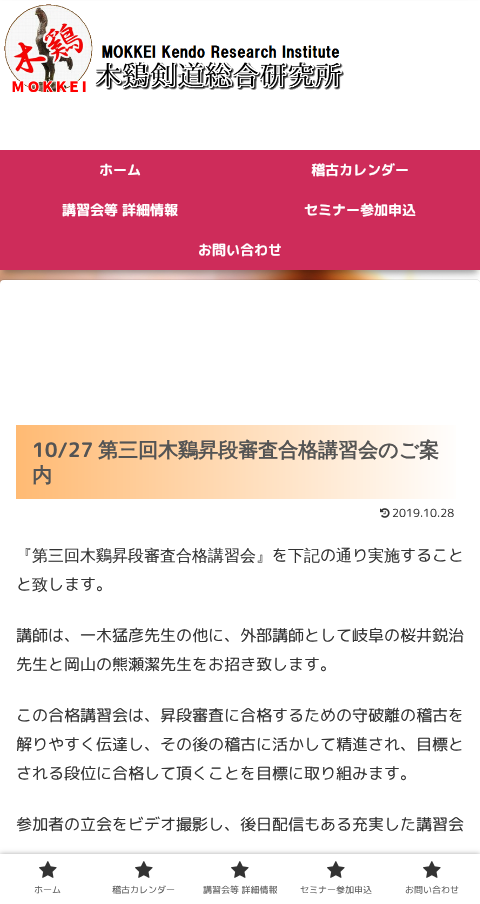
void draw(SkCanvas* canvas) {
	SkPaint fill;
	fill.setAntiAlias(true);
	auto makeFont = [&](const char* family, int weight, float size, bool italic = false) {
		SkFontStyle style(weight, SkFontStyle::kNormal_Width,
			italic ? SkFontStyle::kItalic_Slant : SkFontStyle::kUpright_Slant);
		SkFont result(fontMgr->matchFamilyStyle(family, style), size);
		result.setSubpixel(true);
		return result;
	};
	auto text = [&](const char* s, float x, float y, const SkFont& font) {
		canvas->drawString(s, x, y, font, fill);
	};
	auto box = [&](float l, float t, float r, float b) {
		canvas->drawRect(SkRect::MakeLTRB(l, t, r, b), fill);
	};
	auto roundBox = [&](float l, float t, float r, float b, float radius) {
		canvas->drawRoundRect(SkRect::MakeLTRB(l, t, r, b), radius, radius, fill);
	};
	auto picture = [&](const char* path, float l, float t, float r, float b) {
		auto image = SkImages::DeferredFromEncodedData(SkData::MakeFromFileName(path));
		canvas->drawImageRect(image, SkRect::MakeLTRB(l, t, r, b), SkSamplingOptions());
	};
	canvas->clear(0xFFFFFFFF);
	picture("image0.png", 0, 270, 480, 284);
	fill.setColor(0x2E000000);
	fill.setMaskFilter(SkMaskFilter::MakeBlur(kNormal_SkBlurStyle, 5));
	canvas->drawRect(SkRect::MakeLTRB(3, 9, 477, 273), fill);
	fill.setMaskFilter(nullptr);
	fill.setColor(0x3D000000);
	fill.setMaskFilter(SkMaskFilter::MakeBlur(kNormal_SkBlurStyle, 2.5f));
	canvas->drawRect(SkRect::MakeLTRB(3, 9, 477, 273), fill);
	fill.setMaskFilter(nullptr);
	fill.setColor(0xFFFFFFFF);
	box(0, 1, 480, 150);
	picture("image1.png", 4, 4, 344, 92);
	fill.setColor(0xFFCE2C5A);
	box(0, 150, 480, 270);
	fill.setStyle(SkPaint::kStroke_Style);
	fill.setStrokeWidth(1);
	fill.setColor(0x14000000);
	canvas->drawRoundRect(SkRect::MakeLTRB(-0.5f, 279.5f, 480.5f, 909.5f), 4.5f, 4.5f, fill);
	fill.setStyle(SkPaint::kFill_Style);
	fill.setColor(0xFFFFFFFF);
	roundBox(0, 280, 480, 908, 4);
	{
		const SkColor colors[] = {0xFFFFBA73, 0xFFFFFFFF};
		const float stops[] = {0, 1};
		const SkPoint ends[] = {{16, 462}, {464, 462}};
		fill.setShader(SkGradientShader::MakeLinear(ends, colors, stops, 2, SkTileMode::kClamp));
		fill.setAlpha(255);
	}
	box(16, 425, 456, 499);
	picture("image2.png", 380, 508, 390, 518);
	fill.setShader(nullptr);
	fill.setColor(0xFFA9A9A9);
	fill.setMaskFilter(SkMaskFilter::MakeBlur(kNormal_SkBlurStyle, 2.5f));
	canvas->drawRect(SkRect::MakeLTRB(0, 854, 480, 904), fill);
	fill.setMaskFilter(nullptr);
	fill.setColor(0xFFFFFFFF);
	box(0, 854, 480, 904);
	picture("image3.png", 39, 861, 57, 878);
	picture("image3.png", 135, 861, 153, 878);
	picture("image3.png", 231, 861, 249, 878);
	picture("image3.png", 327, 861, 345, 878);
	picture("image3.png", 423, 861, 441, 878);
	auto font1 = makeFont("Rounded Mplus 1c Bold", 700, 14);
	text("ホーム", 99, 175, font1);
	text("稽古カレンダー", 311, 175, font1);
	text("講習会等 詳細情報", 62, 215, font1);
	text("セミナー参加申込", 304, 215, font1);
	text("お問い合わせ", 198, 255, font1);
	auto font2 = makeFont("Rounded Mplus 1c Bold", 700, 20);
	fill.setColor(0xFF545454);
	text("10/27", 32, 457, font2);
	auto font3 = makeFont("WenQuanYi Zen Hei", 700, 20);
	text("第三回木鷄昇段審査合格講習会のご案", 98, 457, font3);
	text("内", 32, 482, font3);
	auto font4 = makeFont("Rounded Mplus 1c", 400, 11.25f);
	fill.setColor(0xFF333333);
	text("2019.10.28", 392, 517, font4);
	auto font5 = makeFont("WenQuanYi Zen Hei", 500, 16);
	text("『第三回木鷄昇段審査合格講習会』", 16, 561, font5);
	auto font6 = makeFont("Rounded Mplus 1c", 400, 16);
	text("を", 272, 561, font6);
	text("下記", 288, 561, font5);
	text("の", 320, 561, font6);
	text("通", 336, 561, font5);
	text("り", 352, 561, font6);
	text("実施", 368, 561, font5);
	text("すること", 400, 561, font6);
	text("と", 16, 590, font6);
	text("致", 32, 590, font5);
	text("します。", 48, 590, font6);
	text("講師は、一木猛彦先生の他に、外部講師として岐阜の桜井鋭治", 16, 641, font6);
	text("先生と岡山の熊瀬潔先生をお招き致します。", 16, 670, font6);
	text("この合格講習会は、昇段審査に合格するための守破離の稽古を", 16, 721, font6);
	text("解りやすく伝達し、その後の稽古に活かして精進され、目標と", 16, 750, font6);
	text("される段位に合格して頂くことを目標に取り組みます。", 16, 779, font6);
	text("参加者の立会をビデオ撮影し、後日配信もある充実した講習会", 16, 830, font6);
	auto font7 = makeFont("Rounded Mplus 1c", 400, 9);
	fill.setColor(0xFF5C5C5C);
	text("ホーム", 34, 893, font7);
	text("稽古カレンダー", 112, 893, font7);
	text("講習会等 詳細情報", 203, 893, font7);
	text("セミナー参加申込", 300, 893, font7);
	text("お問い合わせ", 405, 893, font7);
}
